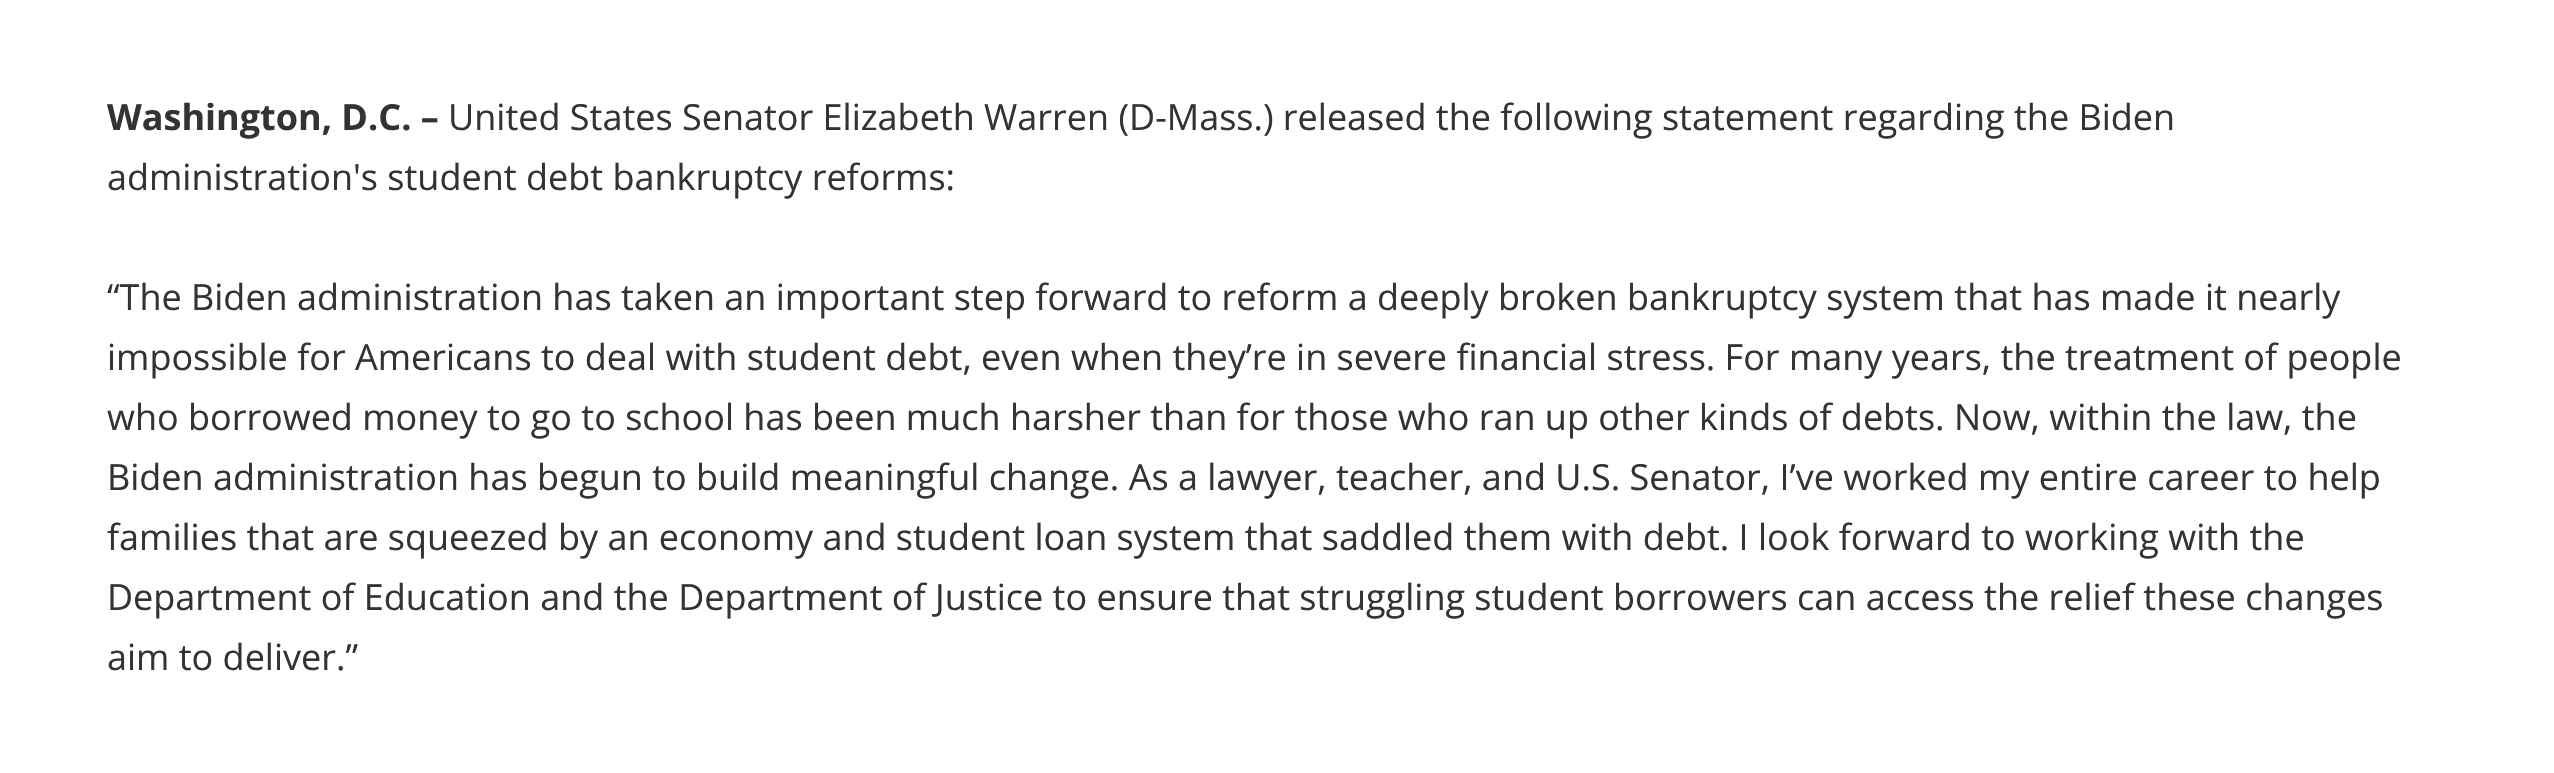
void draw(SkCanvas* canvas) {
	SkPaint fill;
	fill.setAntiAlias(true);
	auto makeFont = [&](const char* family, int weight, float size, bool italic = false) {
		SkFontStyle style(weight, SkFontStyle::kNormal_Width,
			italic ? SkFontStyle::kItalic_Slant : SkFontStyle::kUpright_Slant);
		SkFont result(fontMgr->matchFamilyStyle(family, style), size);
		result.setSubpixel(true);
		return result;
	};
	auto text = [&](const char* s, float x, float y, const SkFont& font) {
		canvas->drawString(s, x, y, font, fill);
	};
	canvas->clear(0xFFFFFFFF);
	auto font1 = makeFont("Open Sans", 700, 36);
	fill.setColor(0xFF333333);
	text("Washington, D.C. –", 107, 130, font1);
	auto font2 = makeFont("Open Sans", 400, 36);
	text("United States Senator Elizabeth Warren (D-Mass.) released the following statement regarding the Biden", 448, 130, font2);
	text("administration's student debt bankruptcy reforms:", 107, 190, font2);
	text("“The Biden administration has taken an important step forward to reform a deeply broken bankruptcy system that has made it nearly", 107, 310, font2);
	text("impossible for Americans to deal with student debt, even when they’re in severe financial stress. For many years, the treatment of people", 107, 370, font2);
	text("who borrowed money to go to school has been much harsher than for those who ran up other kinds of debts. Now, within the law, the", 107, 430, font2);
	text("Biden administration has begun to build meaningful change. As a lawyer, teacher, and U.S. Senator, I’ve worked my entire career to help", 107, 490, font2);
	text("families that are squeezed by an economy and student loan system that saddled them with debt. I look forward to working with the", 107, 550, font2);
	text("Department of Education and the Department of Justice to ensure that struggling student borrowers can access the relief these changes", 107, 610, font2);
	text("aim to deliver.”", 107, 670, font2);
}
